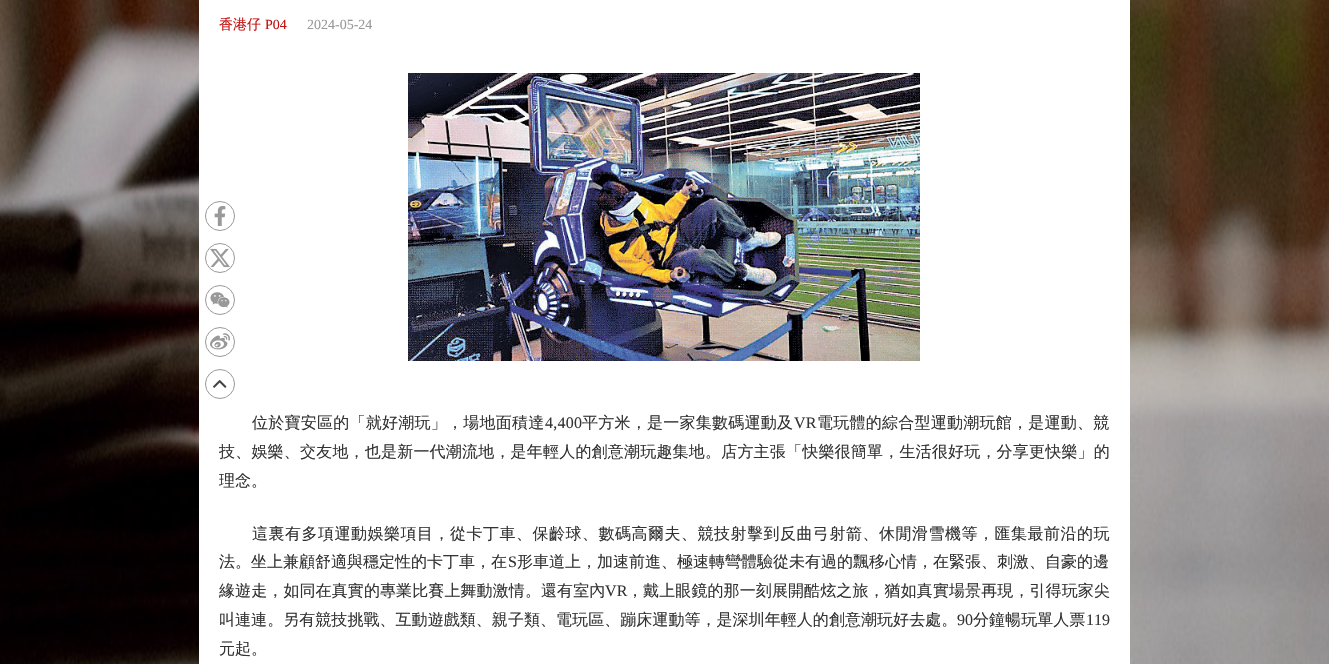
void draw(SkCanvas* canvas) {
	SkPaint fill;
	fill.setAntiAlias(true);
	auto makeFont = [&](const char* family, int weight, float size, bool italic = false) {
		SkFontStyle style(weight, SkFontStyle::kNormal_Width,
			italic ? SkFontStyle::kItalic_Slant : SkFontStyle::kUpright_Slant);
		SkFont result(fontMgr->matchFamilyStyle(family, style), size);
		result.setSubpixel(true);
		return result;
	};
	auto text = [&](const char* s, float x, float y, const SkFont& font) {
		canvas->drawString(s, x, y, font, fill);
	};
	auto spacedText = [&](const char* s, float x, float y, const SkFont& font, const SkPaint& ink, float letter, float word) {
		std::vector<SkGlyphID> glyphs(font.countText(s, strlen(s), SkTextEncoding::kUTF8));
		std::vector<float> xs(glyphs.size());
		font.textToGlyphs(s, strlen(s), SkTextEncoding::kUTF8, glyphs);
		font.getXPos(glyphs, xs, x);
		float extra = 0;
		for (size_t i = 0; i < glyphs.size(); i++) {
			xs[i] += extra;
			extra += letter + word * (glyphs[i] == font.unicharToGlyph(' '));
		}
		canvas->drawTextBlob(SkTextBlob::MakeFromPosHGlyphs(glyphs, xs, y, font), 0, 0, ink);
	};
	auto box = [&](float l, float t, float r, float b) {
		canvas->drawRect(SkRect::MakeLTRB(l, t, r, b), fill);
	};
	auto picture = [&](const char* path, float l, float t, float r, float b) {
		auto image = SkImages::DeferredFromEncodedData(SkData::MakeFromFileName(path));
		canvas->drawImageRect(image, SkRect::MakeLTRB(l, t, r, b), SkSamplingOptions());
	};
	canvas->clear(0xFFFFFFFF);
	picture("image0.png", 0, 0, 1329, 664);
	fill.setColor(0xFFFFFFFF);
	box(199, 0, 1130, 664);
	picture("image1.png", 408, 73, 920, 361);
	fill.setStyle(SkPaint::kStroke_Style);
	fill.setStrokeWidth(1);
	fill.setColor(0xFF999999);
	canvas->drawCircle(220, 216, 14.5f, fill);
	picture("image2.png", 214, 206, 226, 226);
	canvas->drawCircle(220, 258, 14.5f, fill);
	picture("image3.png", 210, 248, 230, 268);
	canvas->drawCircle(220, 300, 14.5f, fill);
	picture("image4.png", 210, 292, 230, 308);
	canvas->drawCircle(220, 342, 14.5f, fill);
	picture("image5.png", 210, 333, 230, 350);
	canvas->drawCircle(220, 384, 14.5f, fill);
	picture("image6.png", 213, 380, 227, 388);
	auto font1 = makeFont("WenQuanYi Zen Hei", 500, 14);
	fill.setStyle(SkPaint::kFill_Style);
	fill.setColor(0xFFC21010);
	text("香港仔", 219, 29, font1);
	auto font2 = makeFont("Liberation Serif", 400, 14);
	text("P04", 265, 29, font2);
	fill.setColor(0xFF999999);
	text("2024-05-24", 307, 29, font2);
	auto font3 = makeFont("WenQuanYi Zen Hei", 500, 16);
	fill.setColor(0xFF333333);
	spacedText("位於寶安區的「就好潮玩」，場地面積達", 252, 428, font3, fill, 0.25f, 0);
	auto font4 = makeFont("Liberation Serif", 400, 16);
	spacedText("4,400", 545, 428, font4, fill, 0.25f, 0);
	spacedText("平方米，是一家集數碼運動及", 582, 428, font3, fill, 0.25f, 0);
	spacedText("VR", 794, 428, font4, fill, 0.25f, 0);
	spacedText("電玩體的綜合型運動潮玩館，是運動、競", 817, 428, font3, fill, 0.25f, 0);
	spacedText("技、娛樂、交友地，也是新一代潮流地，是年輕人的創意潮玩趣集地。店方主張「快樂很簡單，生活很好玩，分享更快樂」的", 219, 457, font3, fill, 0.2f, 0);
	text("理念。", 219, 486, font3);
	spacedText("這裏有多項運動娛樂項目，從卡丁車、保齡球、數碼高爾夫、競技射擊到反曲弓射箭、休閒滑雪機等，匯集最前沿的玩", 252, 539, font3, fill, 0.5f, 0);
	text("法。坐上兼顧舒適與穩定性的卡丁車，在", 219, 567, font3);
	text("S", 508, 567, font4);
	text("形車道上，加速前進、極速轉彎體驗從未有過的飄移心情，在緊張、刺激、自豪的邊", 517, 567, font3);
	spacedText("緣遊走，如同在真實的專業比賽上舞動激情。還有室內", 219, 596, font3, fill, 0.1f, 0);
	spacedText("VR", 605, 596, font4, fill, 0.1f, 0);
	spacedText("，戴上眼鏡的那一刻展開酷炫之旅，猶如真實場景再現，引得玩家尖", 627, 596, font3, fill, 0.1f, 0);
	spacedText("叫連連。另有競技挑戰、互動遊戲類、親子類、電玩區、蹦床運動等，是深圳年輕人的創意潮玩好去處。", 219, 625, font3, fill, 0.05f, 0);
	spacedText("90", 957, 625, font4, fill, 0.05f, 0);
	spacedText("分鐘暢玩單人票", 973, 625, font3, fill, 0.05f, 0);
	spacedText("119", 1086, 625, font4, fill, 0.05f, 0);
	text("元起。", 219, 654, font3);
}
